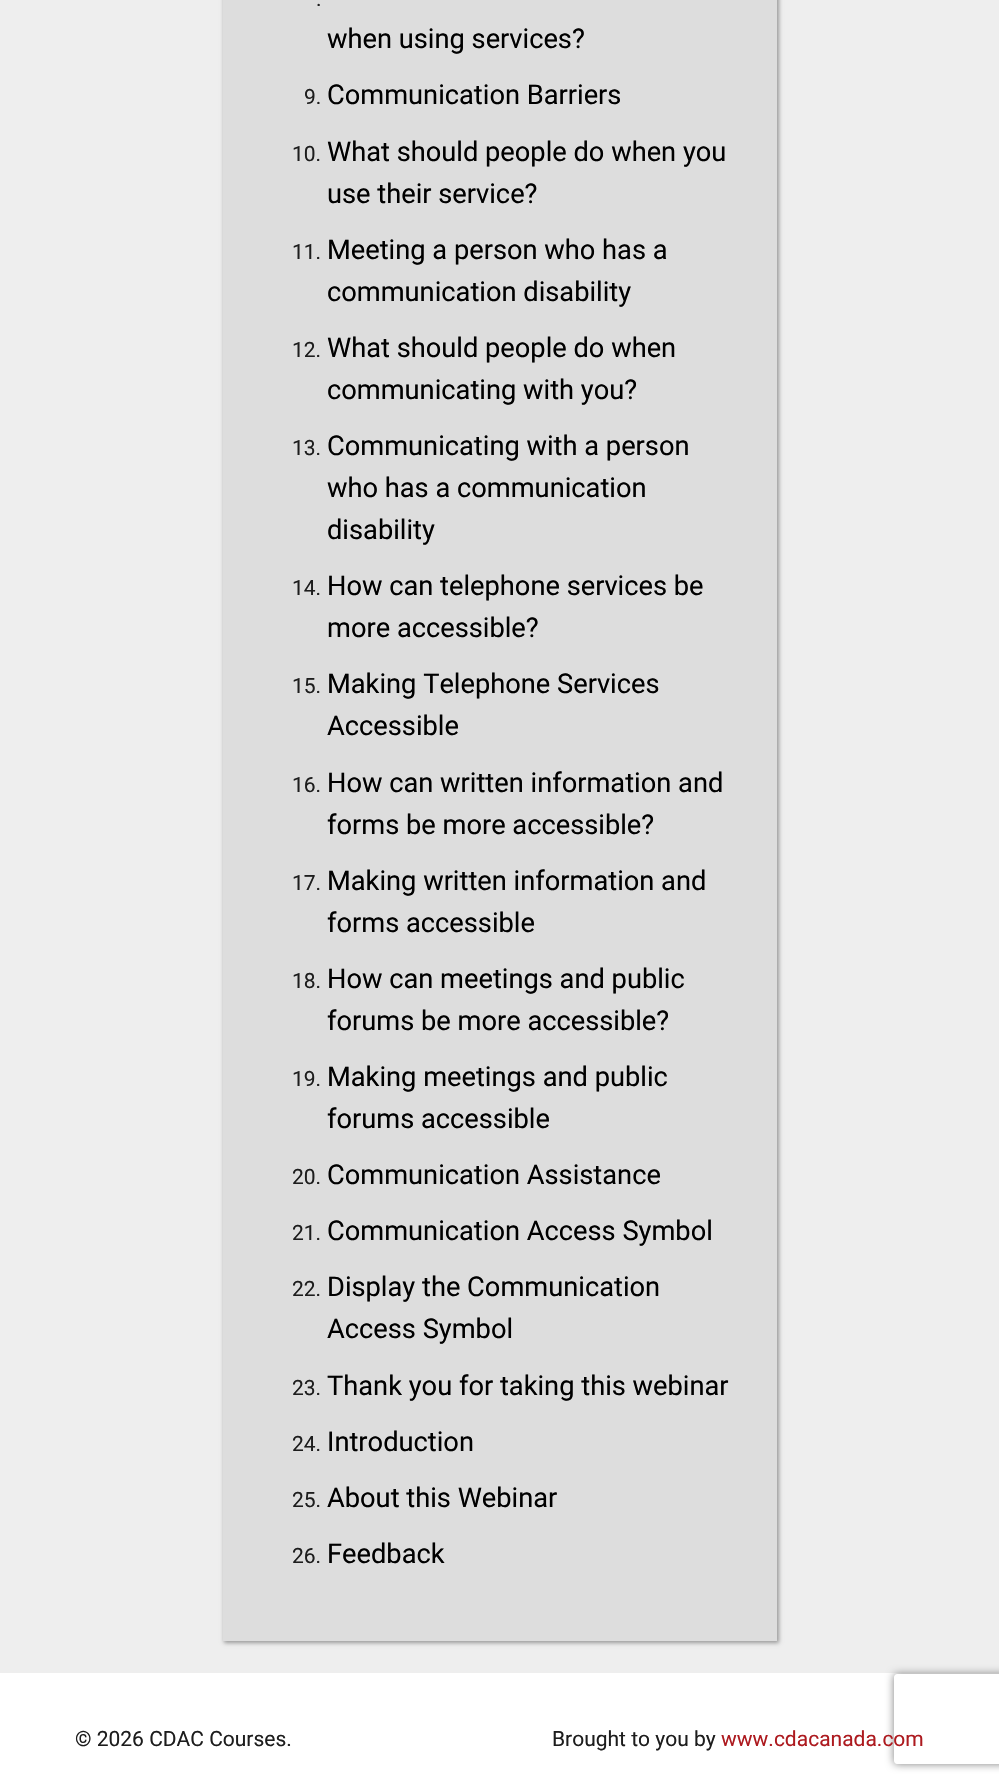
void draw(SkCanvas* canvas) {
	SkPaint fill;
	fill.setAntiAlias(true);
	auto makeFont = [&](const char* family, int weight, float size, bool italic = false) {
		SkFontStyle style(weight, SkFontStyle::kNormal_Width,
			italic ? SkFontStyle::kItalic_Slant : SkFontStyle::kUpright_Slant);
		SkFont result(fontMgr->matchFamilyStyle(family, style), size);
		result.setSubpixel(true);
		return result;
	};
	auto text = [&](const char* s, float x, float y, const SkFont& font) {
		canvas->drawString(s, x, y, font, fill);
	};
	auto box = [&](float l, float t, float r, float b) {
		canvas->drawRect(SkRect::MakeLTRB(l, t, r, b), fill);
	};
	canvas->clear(0xFFFFFFFF);
	fill.setColor(0xFFEEEEEE);
	box(0, 0, 999, 1673);
	fill.setColor(0xFF999999);
	fill.setMaskFilter(SkMaskFilter::MakeBlur(kNormal_SkBlurStyle, 2));
	canvas->drawRect(SkRect::MakeLTRB(224, -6, 779, 1643), fill);
	fill.setMaskFilter(nullptr);
	fill.setColor(0xFFDDDDDD);
	box(223, 0, 777, 1641);
	canvas->save();
	canvas->clipPath(SkPathBuilder(SkPathFillType::kEvenOdd).moveTo(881, 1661).lineTo(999, 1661).lineTo(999, 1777).lineTo(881, 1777).close().moveTo(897, 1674).lineTo(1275, 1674).cubicTo(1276.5f, 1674, 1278, 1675.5f, 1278, 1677).lineTo(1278, 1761).cubicTo(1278, 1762.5f, 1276.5f, 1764, 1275, 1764).lineTo(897, 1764).cubicTo(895.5f, 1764, 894, 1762.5f, 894, 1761).lineTo(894, 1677).cubicTo(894, 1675.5f, 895.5f, 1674, 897, 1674).close().detach(), true);
	fill.setColor(0xFF808080);
	fill.setMaskFilter(SkMaskFilter::MakeBlur(kNormal_SkBlurStyle, 4));
	canvas->drawRoundRect(SkRect::MakeLTRB(894, 1674, 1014, 1764), 3, 3, fill);
	fill.setMaskFilter(nullptr);
	canvas->restore();
	auto font1 = makeFont("Roboto", 400, 21);
	fill.setColor(0xFF1D1D1D);
	text(".", 316, 6, font1);
	auto font2 = makeFont("Roboto", 400, 27.25f);
	fill.setColor(0xFF000000);
	text("when using services?", 327, 48, font2);
	fill.setColor(0xFF1D1D1D);
	text("9.", 304, 104, font1);
	fill.setColor(0xFF000000);
	text("Communication Barriers", 327, 104, font2);
	fill.setColor(0xFF1D1D1D);
	text("10.", 292, 161, font1);
	fill.setColor(0xFF000000);
	text("What should people do when you", 327, 161, font2);
	text("use their service?", 327, 203, font2);
	fill.setColor(0xFF1D1D1D);
	text("11.", 292, 259, font1);
	fill.setColor(0xFF000000);
	text("Meeting a person who has a", 327, 259, font2);
	text("communication disability", 327, 301, font2);
	fill.setColor(0xFF1D1D1D);
	text("12.", 292, 357, font1);
	fill.setColor(0xFF000000);
	text("What should people do when", 327, 357, font2);
	text("communicating with you?", 327, 399, font2);
	fill.setColor(0xFF1D1D1D);
	text("13.", 292, 455, font1);
	fill.setColor(0xFF000000);
	text("Communicating with a person", 327, 455, font2);
	text("who has a communication", 327, 497, font2);
	text("disability", 327, 539, font2);
	fill.setColor(0xFF1D1D1D);
	text("14.", 292, 595, font1);
	fill.setColor(0xFF000000);
	text("How can telephone services be", 327, 595, font2);
	text("more accessible?", 327, 637, font2);
	fill.setColor(0xFF1D1D1D);
	text("15.", 292, 693, font1);
	fill.setColor(0xFF000000);
	text("Making Telephone Services", 327, 693, font2);
	text("Accessible", 327, 735, font2);
	fill.setColor(0xFF1D1D1D);
	text("16.", 292, 792, font1);
	fill.setColor(0xFF000000);
	text("How can written information and", 327, 792, font2);
	text("forms be more accessible?", 327, 834, font2);
	fill.setColor(0xFF1D1D1D);
	text("17.", 292, 890, font1);
	fill.setColor(0xFF000000);
	text("Making written information and", 327, 890, font2);
	text("forms accessible", 327, 932, font2);
	fill.setColor(0xFF1D1D1D);
	text("18.", 292, 988, font1);
	fill.setColor(0xFF000000);
	text("How can meetings and public", 327, 988, font2);
	text("forums be more accessible?", 327, 1030, font2);
	fill.setColor(0xFF1D1D1D);
	text("19.", 292, 1086, font1);
	fill.setColor(0xFF000000);
	text("Making meetings and public", 327, 1086, font2);
	text("forums accessible", 327, 1128, font2);
	fill.setColor(0xFF1D1D1D);
	text("20.", 292, 1184, font1);
	fill.setColor(0xFF000000);
	text("Communication Assistance", 327, 1184, font2);
	fill.setColor(0xFF1D1D1D);
	text("21.", 292, 1240, font1);
	fill.setColor(0xFF000000);
	text("Communication Access Symbol", 327, 1240, font2);
	fill.setColor(0xFF1D1D1D);
	text("22.", 292, 1296, font1);
	fill.setColor(0xFF000000);
	text("Display the Communication", 327, 1296, font2);
	text("Access Symbol", 327, 1338, font2);
	fill.setColor(0xFF1D1D1D);
	text("23.", 292, 1395, font1);
	fill.setColor(0xFF000000);
	text("Thank you for taking this webinar", 327, 1395, font2);
	fill.setColor(0xFF1D1D1D);
	text("24.", 292, 1451, font1);
	fill.setColor(0xFF000000);
	text("Introduction", 327, 1451, font2);
	fill.setColor(0xFF1D1D1D);
	text("25.", 292, 1507, font1);
	fill.setColor(0xFF000000);
	text("About this Webinar", 327, 1507, font2);
	fill.setColor(0xFF1D1D1D);
	text("26.", 292, 1563, font1);
	fill.setColor(0xFF000000);
	text("Feedback", 327, 1563, font2);
	fill.setColor(0xFF1D1D1D);
	text("© 2026 CDAC Courses.", 75, 1746, font1);
	text("Brought to you by", 552, 1746, font1);
	fill.setColor(0xFFAD1A1F);
	text("www.cdacanada.com", 721, 1746, font1);
}
